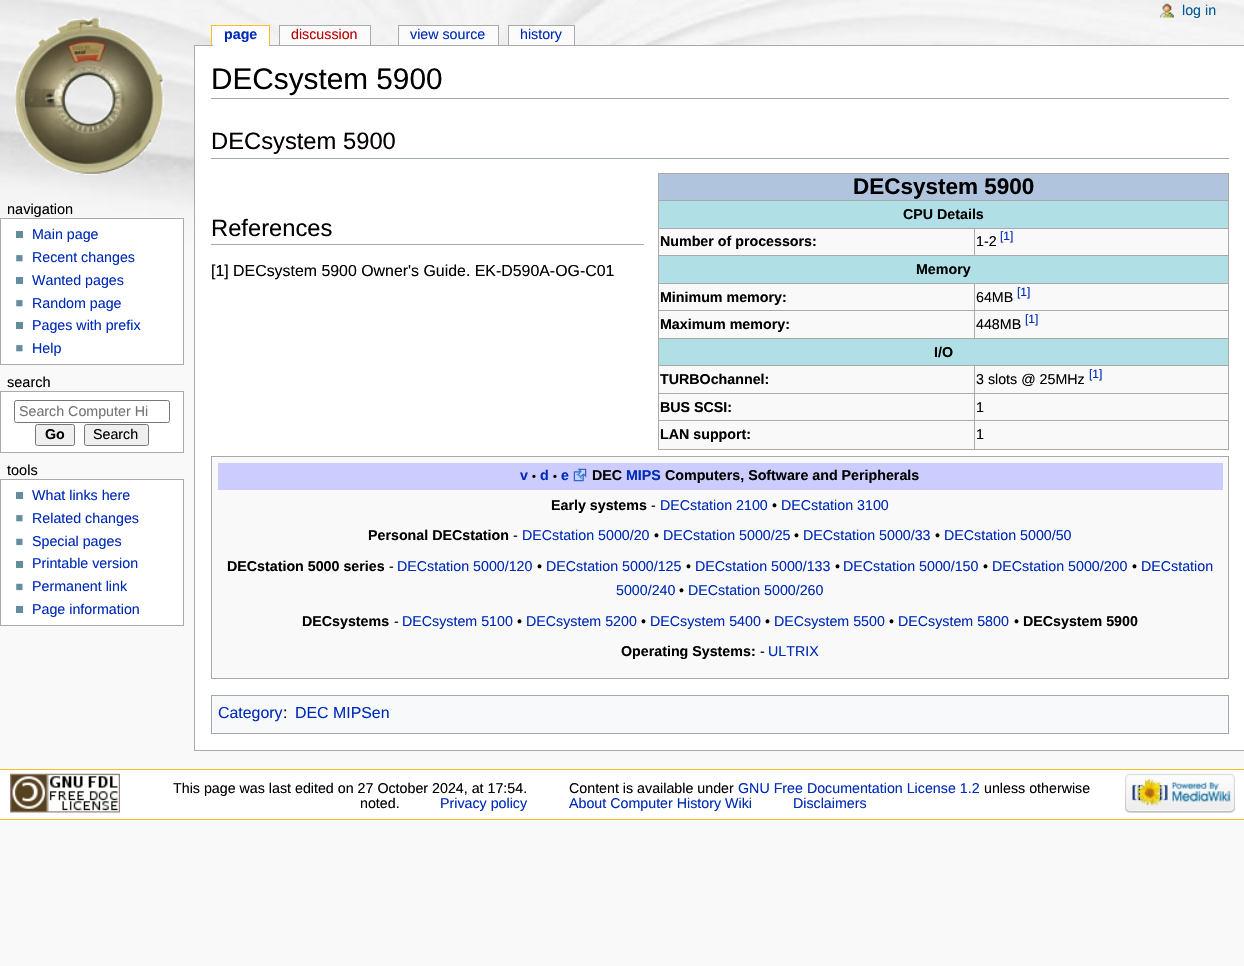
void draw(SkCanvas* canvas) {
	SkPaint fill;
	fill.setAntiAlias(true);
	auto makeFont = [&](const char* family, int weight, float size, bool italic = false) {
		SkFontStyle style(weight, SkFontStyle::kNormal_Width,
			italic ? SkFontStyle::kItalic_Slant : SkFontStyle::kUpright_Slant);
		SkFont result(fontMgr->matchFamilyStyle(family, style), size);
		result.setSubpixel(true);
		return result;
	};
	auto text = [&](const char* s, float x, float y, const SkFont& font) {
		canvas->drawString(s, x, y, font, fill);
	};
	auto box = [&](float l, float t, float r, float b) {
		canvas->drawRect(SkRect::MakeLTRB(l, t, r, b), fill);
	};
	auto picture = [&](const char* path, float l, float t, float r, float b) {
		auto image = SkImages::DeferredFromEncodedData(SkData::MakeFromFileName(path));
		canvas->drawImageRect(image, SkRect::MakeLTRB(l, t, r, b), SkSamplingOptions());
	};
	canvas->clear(0xFFF9F9F9);
	picture("image0.png", 0, 0, 1244, 243);
	picture("image1.png", 1159, 3, 1174, 18);
	picture("image2.png", 15, 17, 164, 175);
	fill.setColor(0xFFFFFFFF);
	box(212, 26, 213, 45);
	fill.setColor(0xFFFABD23);
	box(211, 25, 270, 26);
	box(269, 25, 270, 45);
	box(211, 25, 212, 45);
	fill.setColor(0xFFAAAAAA);
	box(194, 45, 1244, 46);
	fill.setColor(0xFFFFFFFF);
	box(213, 26, 269, 46);
	fill.setColor(0xFFAAAAAA);
	box(279, 25, 371, 26);
	box(370, 25, 371, 45);
	box(279, 25, 280, 45);
	fill.setColor(0xFFFBFBFB);
	box(280, 26, 370, 45);
	fill.setColor(0xFFAAAAAA);
	box(398, 25, 499, 26);
	box(498, 25, 499, 45);
	box(398, 25, 399, 45);
	fill.setColor(0xFFFBFBFB);
	box(399, 26, 498, 45);
	fill.setColor(0xFFAAAAAA);
	box(508, 25, 575, 26);
	box(574, 25, 575, 45);
	box(508, 25, 509, 45);
	fill.setColor(0xFFFBFBFB);
	box(509, 26, 574, 45);
	fill.setColor(0xFFFFFFFF);
	canvas->drawRect(SkRect::MakeLTRB(0.5f, 218.5f, 183.5f, 364.5f), fill);
	fill.setStyle(SkPaint::kStroke_Style);
	fill.setStrokeWidth(1);
	fill.setColor(0xFFAAAAAA);
	canvas->drawRect(SkRect::MakeLTRB(0.5f, 218.5f, 183.5f, 364.5f), fill);
	fill.setStyle(SkPaint::kFill_Style);
	fill.setColor(0xFF638C9C);
	box(16, 231, 23, 238);
	picture("image3.png", 16, 254, 23, 262);
	box(16, 277, 23, 284);
	picture("image3.png", 16, 299, 23, 307);
	box(16, 322, 23, 329);
	picture("image3.png", 16, 344, 23, 352);
	fill.setColor(0xFFFFFFFF);
	canvas->drawRect(SkRect::MakeLTRB(0.5f, 391.5f, 183.5f, 452.5f), fill);
	fill.setStyle(SkPaint::kStroke_Style);
	fill.setColor(0xFFAAAAAA);
	canvas->drawRect(SkRect::MakeLTRB(0.5f, 391.5f, 183.5f, 452.5f), fill);
	fill.setColor(0xFF767676);
	canvas->drawRoundRect(SkRect::MakeLTRB(14.5f, 400.5f, 169.5f, 422.5f), 2, 2, fill);
	fill.setStyle(SkPaint::kFill_Style);
	fill.setColor(0xFFEFEFEF);
	canvas->drawRoundRect(SkRect::MakeLTRB(35.5f, 424.5f, 74.5f, 445.5f), 2, 2, fill);
	fill.setStyle(SkPaint::kStroke_Style);
	fill.setColor(0xFF767676);
	canvas->drawRoundRect(SkRect::MakeLTRB(35.5f, 424.5f, 74.5f, 445.5f), 2, 2, fill);
	fill.setStyle(SkPaint::kFill_Style);
	fill.setColor(0xFFEFEFEF);
	canvas->drawRoundRect(SkRect::MakeLTRB(84.5f, 424.5f, 148.5f, 445.5f), 2, 2, fill);
	fill.setStyle(SkPaint::kStroke_Style);
	fill.setColor(0xFF767676);
	canvas->drawRoundRect(SkRect::MakeLTRB(84.5f, 424.5f, 148.5f, 445.5f), 2, 2, fill);
	fill.setStyle(SkPaint::kFill_Style);
	fill.setColor(0xFFFFFFFF);
	canvas->drawRect(SkRect::MakeLTRB(0.5f, 479.5f, 183.5f, 625.5f), fill);
	fill.setStyle(SkPaint::kStroke_Style);
	fill.setColor(0xFFAAAAAA);
	canvas->drawRect(SkRect::MakeLTRB(0.5f, 479.5f, 183.5f, 625.5f), fill);
	fill.setStyle(SkPaint::kFill_Style);
	fill.setColor(0xFF638C9C);
	box(16, 492, 23, 499);
	picture("image3.png", 16, 514, 23, 522);
	picture("image4.png", 16, 538, 23, 546);
	box(16, 561, 23, 568);
	picture("image4.png", 16, 583, 23, 591);
	box(16, 606, 23, 613);
	fill.setColor(0xFFFFFFFF);
	box(195, 46, 1244, 750);
	fill.setColor(0xFFAAAAAA);
	box(194, 750, 1244, 751);
	box(194, 45, 195, 751);
	fill.setColor(0xFFA2A9B1);
	box(211, 98, 1229, 99);
	box(211, 158, 1229, 159);
	box(211, 244, 644, 245);
	fill.setColor(0xFFF9F9F9);
	box(659, 229, 1228, 449);
	fill.setColor(0xFFAAAAAA);
	box(658, 173, 1229, 174);
	box(1228, 173, 1229, 450);
	box(658, 449, 1229, 450);
	box(658, 173, 659, 450);
	fill.setColor(0xFFB0C4DE);
	box(659, 174, 1228, 200);
	fill.setColor(0xFFB0E0E6);
	box(659, 201, 1228, 228);
	fill.setColor(0xFFAAAAAA);
	box(658, 200, 1229, 201);
	box(974, 228, 1229, 229);
	box(658, 255, 1229, 256);
	box(974, 228, 975, 256);
	box(658, 228, 975, 229);
	fill.setColor(0xFFB0E0E6);
	box(659, 256, 1228, 283);
	fill.setColor(0xFFAAAAAA);
	box(974, 283, 1229, 284);
	box(974, 310, 1229, 311);
	box(658, 338, 1229, 339);
	box(974, 310, 975, 339);
	box(658, 310, 975, 311);
	box(974, 283, 975, 311);
	box(658, 283, 975, 284);
	fill.setColor(0xFFB0E0E6);
	box(659, 339, 1228, 365);
	fill.setColor(0xFFAAAAAA);
	box(974, 365, 1229, 366);
	box(974, 393, 1229, 394);
	box(974, 420, 1229, 421);
	box(974, 420, 975, 450);
	box(658, 420, 975, 421);
	box(974, 393, 975, 421);
	box(658, 393, 975, 394);
	box(974, 365, 975, 394);
	box(658, 365, 975, 366);
	fill.setColor(0xFFF9F9F9);
	canvas->drawRect(SkRect::MakeLTRB(211.5f, 456.5f, 1228.5f, 678.5f), fill);
	fill.setStyle(SkPaint::kStroke_Style);
	fill.setColor(0xFFAAAAAA);
	canvas->drawRect(SkRect::MakeLTRB(211.5f, 456.5f, 1228.5f, 678.5f), fill);
	fill.setStyle(SkPaint::kFill_Style);
	fill.setColor(0xFFCCCCFF);
	box(218, 463, 1223, 490);
	picture("image5.png", 573, 468, 587, 482);
	fill.setColor(0xFFF8F9FA);
	canvas->drawRect(SkRect::MakeLTRB(211.5f, 695.5f, 1228.5f, 733.5f), fill);
	fill.setStyle(SkPaint::kStroke_Style);
	fill.setColor(0xFFA2A9B1);
	canvas->drawRect(SkRect::MakeLTRB(211.5f, 695.5f, 1228.5f, 733.5f), fill);
	fill.setStyle(SkPaint::kFill_Style);
	fill.setColor(0xFFFFFFFF);
	box(0, 770, 1244, 819);
	fill.setColor(0xFFFABD23);
	box(0, 769, 1244, 770);
	box(0, 819, 1244, 820);
	picture("image6.png", 10, 773, 120, 813);
	picture("image7.png", 1125, 773, 1235, 813);
	auto font1 = makeFont("Liberation Sans", 400, 14.25f);
	fill.setColor(0xFF005896);
	text("log in", 1182, 15, font1);
	auto font2 = makeFont("Liberation Sans", 700, 14.25f);
	fill.setColor(0xFF002BB8);
	text("page", 224, 39, font2);
	fill.setColor(0xFFBA0000);
	text("discussion", 291, 39, font1);
	fill.setColor(0xFF002BB8);
	text("view source", 410, 39, font1);
	text("history", 520, 39, font1);
	auto font3 = makeFont("Liberation Sans", 400, 14.5f);
	fill.setColor(0xFF000000);
	text("navigation", 7, 214, font3);
	fill.setColor(0xFF002BB8);
	text("Main page", 32, 239, font1);
	text("Recent changes", 32, 262, font1);
	text("Wanted pages", 32, 285, font1);
	text("Random page", 32, 308, font1);
	text("Pages with prefix", 32, 330, font1);
	text("Help", 32, 353, font1);
	fill.setColor(0xFF000000);
	text("search", 7, 387, font3);
	fill.setColor(0xFF757575);
	text("Search Computer Hi", 19, 416, font1);
	fill.setColor(0xFF000000);
	text("Go", 45, 439, font2);
	text("Search", 93, 439, font1);
	text("tools", 7, 475, font3);
	fill.setColor(0xFF002BB8);
	text("What links here", 32, 500, font1);
	text("Related changes", 32, 523, font1);
	text("Special pages", 32, 546, font1);
	text("Printable version", 32, 568, font1);
	text("Permanent link", 32, 591, font1);
	text("Page information", 32, 614, font1);
	auto font4 = makeFont("Liberation Sans", 400, 29.75f);
	fill.setColor(0xFF000000);
	text("DECsystem 5900", 211, 89, font4);
	auto font5 = makeFont("Liberation Sans", 400, 23.75f);
	text("DECsystem 5900", 211, 149, font5);
	text("References", 211, 236, font5);
	auto font6 = makeFont("Liberation Sans", 700, 22.5f);
	text("DECsystem 5900", 853, 194, font6);
	text("CPU Details", 903, 219, font2);
	text("Number of processors:", 660, 246, font2);
	text("1-2", 976, 246, font1);
	auto font7 = makeFont("Liberation Sans", 400, 12);
	fill.setColor(0xFF002BB8);
	text("[1]", 1000, 240, font7);
	fill.setColor(0xFF000000);
	text("Memory", 916, 274, font2);
	text("Minimum memory:", 660, 302, font2);
	text("64MB", 976, 302, font1);
	fill.setColor(0xFF002BB8);
	text("[1]", 1017, 296, font7);
	fill.setColor(0xFF000000);
	text("Maximum memory:", 660, 329, font2);
	text("448MB", 976, 329, font1);
	fill.setColor(0xFF002BB8);
	text("[1]", 1025, 323, font7);
	fill.setColor(0xFF000000);
	text("I/O", 934, 357, font2);
	text("TURBOchannel:", 660, 384, font2);
	text("3 slots @ 25MHz", 976, 384, font1);
	fill.setColor(0xFF002BB8);
	text("[1]", 1089, 378, font7);
	fill.setColor(0xFF000000);
	text("BUS SCSI:", 660, 412, font2);
	text("1", 976, 412, font1);
	text("LAN support:", 660, 439, font2);
	text("1", 976, 439, font1);
	auto font8 = makeFont("Liberation Sans", 400, 15.9f);
	text("[1] DECsystem 5900 Owner's Guide. EK-D590A-OG-C01", 211, 276, font8);
	fill.setColor(0xFF002BB8);
	text("v", 520, 480, font2);
	auto font9 = makeFont("Liberation Sans", 700, 11);
	fill.setColor(0xFF000000);
	text("•", 532, 480, font9);
	fill.setColor(0xFF002BB8);
	text("d", 540, 480, font2);
	fill.setColor(0xFF000000);
	text("•", 553, 480, font9);
	fill.setColor(0xFF002BB8);
	text("e", 561, 480, font2);
	fill.setColor(0xFF000000);
	text("DEC", 592, 480, font2);
	fill.setColor(0xFF002BB8);
	text("MIPS", 626, 480, font2);
	fill.setColor(0xFF000000);
	text("Computers, Software and Peripherals", 665, 480, font2);
	text("Early systems", 551, 510, font2);
	text("-", 651, 510, font1);
	fill.setColor(0xFF002BB8);
	text("DECstation 2100", 660, 510, font1);
	fill.setColor(0xFF000000);
	text("•", 772, 510, font1);
	fill.setColor(0xFF002BB8);
	text("DECstation 3100", 781, 510, font1);
	fill.setColor(0xFF000000);
	text("Personal DECstation", 368, 540, font2);
	text("-", 513, 540, font1);
	fill.setColor(0xFF002BB8);
	text("DECstation 5000/20", 522, 540, font1);
	fill.setColor(0xFF000000);
	text("•", 654, 540, font1);
	fill.setColor(0xFF002BB8);
	text("DECstation 5000/25", 663, 540, font1);
	fill.setColor(0xFF000000);
	text("•", 794, 540, font1);
	fill.setColor(0xFF002BB8);
	text("DECstation 5000/33", 803, 540, font1);
	fill.setColor(0xFF000000);
	text("•", 935, 540, font1);
	fill.setColor(0xFF002BB8);
	text("DECstation 5000/50", 944, 540, font1);
	fill.setColor(0xFF000000);
	text("DECstation 5000 series", 227, 571, font2);
	text("-", 389, 571, font1);
	fill.setColor(0xFF002BB8);
	text("DECstation 5000/120", 397, 571, font1);
	fill.setColor(0xFF000000);
	text("•", 537, 571, font1);
	fill.setColor(0xFF002BB8);
	text("DECstation 5000/125", 546, 571, font1);
	fill.setColor(0xFF000000);
	text("•", 686, 571, font1);
	fill.setColor(0xFF002BB8);
	text("DECstation 5000/133", 695, 571, font1);
	fill.setColor(0xFF000000);
	text("•", 835, 571, font1);
	fill.setColor(0xFF002BB8);
	text("DECstation 5000/150", 843, 571, font1);
	fill.setColor(0xFF000000);
	text("•", 983, 571, font1);
	fill.setColor(0xFF002BB8);
	text("DECstation 5000/200", 992, 571, font1);
	fill.setColor(0xFF000000);
	text("•", 1132, 571, font1);
	fill.setColor(0xFF002BB8);
	text("DECstation", 1141, 571, font1);
	text("5000/240", 616, 595, font1);
	fill.setColor(0xFF000000);
	text("•", 679, 595, font1);
	fill.setColor(0xFF002BB8);
	text("DECstation 5000/260", 688, 595, font1);
	fill.setColor(0xFF000000);
	text("DECsystems", 302, 626, font2);
	text("-", 394, 626, font1);
	fill.setColor(0xFF002BB8);
	text("DECsystem 5100", 402, 626, font1);
	fill.setColor(0xFF000000);
	text("•", 517, 626, font1);
	fill.setColor(0xFF002BB8);
	text("DECsystem 5200", 526, 626, font1);
	fill.setColor(0xFF000000);
	text("•", 641, 626, font1);
	fill.setColor(0xFF002BB8);
	text("DECsystem 5400", 650, 626, font1);
	fill.setColor(0xFF000000);
	text("•", 765, 626, font1);
	fill.setColor(0xFF002BB8);
	text("DECsystem 5500", 774, 626, font1);
	fill.setColor(0xFF000000);
	text("•", 889, 626, font1);
	fill.setColor(0xFF002BB8);
	text("DECsystem 5800", 898, 626, font1);
	fill.setColor(0xFF000000);
	text("•", 1014, 626, font1);
	text("DECsystem 5900", 1023, 626, font2);
	text("Operating Systems:", 621, 656, font2);
	text("-", 760, 656, font1);
	fill.setColor(0xFF002BB8);
	text("ULTRIX", 768, 656, font1);
	text("Category", 218, 718, font8);
	fill.setColor(0xFF000000);
	text(":", 283, 718, font8);
	fill.setColor(0xFF002BB8);
	text("DEC MIPSen", 295, 718, font8);
	fill.setColor(0xFF000000);
	text("This page was last edited on 27 October 2024, at 17:54.", 173, 793, font1);
	text("Content is available under", 569, 793, font1);
	fill.setColor(0xFF002BB8);
	text("GNU Free Documentation License 1.2", 738, 793, font1);
	fill.setColor(0xFF000000);
	text("unless otherwise", 984, 793, font1);
	text("noted.", 360, 808, font1);
	fill.setColor(0xFF002BB8);
	text("Privacy policy", 440, 808, font1);
	text("About Computer History Wiki", 569, 808, font1);
	text("Disclaimers", 793, 808, font1);
}
